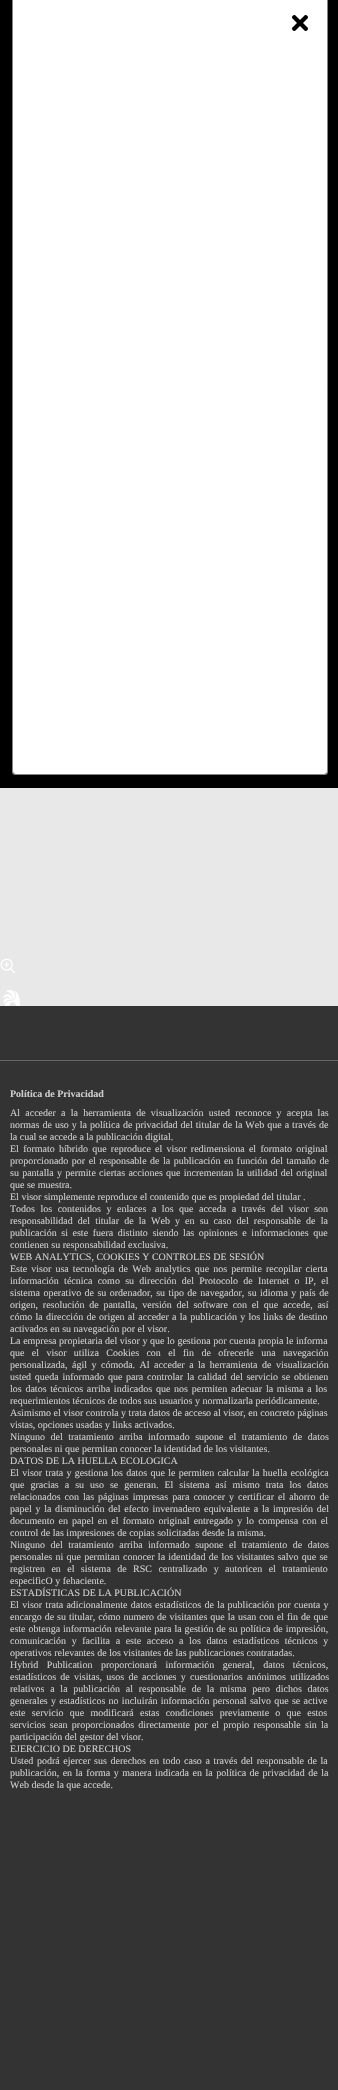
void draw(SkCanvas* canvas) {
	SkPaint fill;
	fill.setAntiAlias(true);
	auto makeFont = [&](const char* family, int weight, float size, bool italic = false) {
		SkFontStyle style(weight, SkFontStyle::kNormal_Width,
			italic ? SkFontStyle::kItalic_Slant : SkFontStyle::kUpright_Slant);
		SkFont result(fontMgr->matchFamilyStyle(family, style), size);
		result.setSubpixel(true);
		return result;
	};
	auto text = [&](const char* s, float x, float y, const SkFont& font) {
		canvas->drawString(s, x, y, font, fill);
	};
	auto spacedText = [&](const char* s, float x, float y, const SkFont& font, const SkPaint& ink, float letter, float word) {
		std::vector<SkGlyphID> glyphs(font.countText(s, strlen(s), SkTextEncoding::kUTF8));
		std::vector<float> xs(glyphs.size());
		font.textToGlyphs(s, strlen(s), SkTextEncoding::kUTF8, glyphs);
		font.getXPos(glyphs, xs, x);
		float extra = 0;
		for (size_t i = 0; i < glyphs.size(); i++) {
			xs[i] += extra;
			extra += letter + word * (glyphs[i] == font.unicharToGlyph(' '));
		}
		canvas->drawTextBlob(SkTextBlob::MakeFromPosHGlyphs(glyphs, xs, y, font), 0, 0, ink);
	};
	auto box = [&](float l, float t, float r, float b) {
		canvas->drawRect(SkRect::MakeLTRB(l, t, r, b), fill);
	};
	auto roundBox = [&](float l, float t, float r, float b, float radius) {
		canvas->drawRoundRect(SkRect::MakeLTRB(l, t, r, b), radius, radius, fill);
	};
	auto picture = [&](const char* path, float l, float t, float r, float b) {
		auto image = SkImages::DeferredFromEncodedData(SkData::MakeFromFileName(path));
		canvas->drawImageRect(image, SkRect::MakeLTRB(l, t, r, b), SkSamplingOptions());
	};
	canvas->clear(0xFF333333);
	fill.setColor(0xFF000000);
	box(0, 0, 338, 788);
	fill.setColor(0xFF333333);
	roundBox(12, -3, 328, 775, 3);
	fill.setStyle(SkPaint::kStroke_Style);
	fill.setStrokeWidth(1);
	fill.setColor(0x66FFFFFF);
	canvas->drawRoundRect(SkRect::MakeLTRB(12.5f, -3.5f, 327.5f, 774.5f), 2.5f, 2.5f, fill);
	fill.setStyle(SkPaint::kFill_Style);
	fill.setColor(0xFFFFFFFF);
	roundBox(13, -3, 327, 774, 3);
	picture("image0.png", 292, 15, 308, 31);
	fill.setColor(0xFFE8E8E8);
	box(0, 788, 338, 1006);
	picture("image1.png", 0, 958, 16, 974);
	picture("image2.png", 3, 990, 20, 1006);
	fill.setColor(0xFF666666);
	box(0, 1060, 338, 1061);
	auto font1 = makeFont("Liberation Serif", 700, 10);
	fill.setColor(0xFFCCCCCC);
	text("Política de Privacidad", 10, 1097, font1);
	auto font2 = makeFont("Liberation Serif", 400, 10);
	spacedText("Al acceder a la herramienta de visualización usted reconoce y acepta las", 10, 1116, font2, fill, 0, 2.75f);
	spacedText("normas de uso y la política de privacidad del titular de la Web que a través de", 10, 1128, font2, fill, 0, 0.5f);
	text("la cual se accede a la publicación digital.", 10, 1140, font2);
	spacedText("El formato híbrido que reproduce el visor redimensiona el formato original", 10, 1152, font2, fill, 0, 1.75f);
	spacedText("proporcionado por el responsable de la publicación en función del tamaño de", 10, 1164, font2, fill, 0, 1);
	spacedText("su pantalla y permite ciertas acciones que incrementan la utilidad del original", 10, 1176, font2, fill, 0, 0.75f);
	text("que se muestra.", 10, 1188, font2);
	text("El visor simplemente reproduce el contenido que es propiedad del titular .", 10, 1200, font2);
	spacedText("Todos los contenidos y enlaces a los que acceda a través del visor son", 10, 1212, font2, fill, 0, 3);
	spacedText("responsabilidad del titular de la Web y en su caso del responsable de la", 10, 1224, font2, fill, 0, 2.6f);
	spacedText("publicación si este fuera distinto siendo las opiniones e informaciones que", 10, 1236, font2, fill, 0, 2.1f);
	text("contienen su responsabilidad exclusiva.", 10, 1248, font2);
	text("WEB ANALYTICS, COOKIES Y CONTROLES DE SESIÓN", 10, 1260, font2);
	spacedText("Este visor usa tecnología de Web analytics que nos permite recopilar cierta", 10, 1272, font2, fill, 0, 1.6f);
	spacedText("información técnica como su dirección del Protocolo de Internet o IP, el", 10, 1284, font2, fill, 0, 2.75f);
	spacedText("sistema operativo de su ordenador, su tipo de navegador, su idioma y país de", 10, 1296, font2, fill, 0, 0.9f);
	spacedText("origen, resolución de pantalla, versión del software con el que accede, así", 10, 1308, font2, fill, 0, 2.25f);
	spacedText("cómo la dirección de origen al acceder a la publicación y los links de destino", 10, 1320, font2, fill, 0, 0.75f);
	text("activados en su navegación por el visor.", 10, 1332, font2);
	spacedText("La empresa propietaria del visor y que lo gestiona por cuenta propia le informa", 10, 1344, font2, fill, 0, 0.1f);
	spacedText("que el visor utiliza Cookies con el fin de ofrecerle una navegación", 10, 1356, font2, fill, 0, 4.9f);
	spacedText("personalizada, ágil y cómoda. Al acceder a la herramienta de visualización", 10, 1368, font2, fill, 0, 2);
	spacedText("usted queda informado que para controlar la calidad del servicio se obtienen", 10, 1380, font2, fill, 0, 1.25f);
	spacedText("los datos técnicos arriba indicados que nos permiten adecuar la misma a los", 10, 1392, font2, fill, 0, 1.25f);
	text("requerimientos técnicos de todos sus usuarios y normalizarla periódicamente.", 10, 1404, font2);
	text("Asimismo el visor controla y trata datos de acceso al visor, en concreto páginas", 10, 1416, font2);
	text("vistas, opciones usadas y links activados.", 10, 1428, font2);
	spacedText("Ninguno del tratamiento arriba informado supone el tratamiento de datos", 10, 1440, font2, fill, 0, 3);
	text("personales ni que permitan conocer la identidad de los visitantes.", 10, 1452, font2);
	text("DATOS DE LA HUELLA ECOLOGICA", 10, 1464, font2);
	spacedText("El visor trata y gestiona los datos que le permiten calcular la huella ecológica", 10, 1476, font2, fill, 0, 0.75f);
	spacedText("que gracias a su uso se generan. El sistema así mismo trata los datos", 10, 1488, font2, fill, 0, 3.5f);
	spacedText("relacionados con las páginas impresas para conocer y certificar el ahorro de", 10, 1500, font2, fill, 0, 1.5f);
	spacedText("papel y la disminución del efecto invernadero equivalente a la impresión del", 10, 1512, font2, fill, 0, 1.25f);
	spacedText("documento en papel en el formato original entregado y lo compensa con el", 10, 1524, font2, fill, 0, 1.6f);
	text("control de las impresiones de copias solicitadas desde la misma.", 10, 1536, font2);
	spacedText("Ninguno del tratamiento arriba informado supone el tratamiento de datos", 10, 1548, font2, fill, 0, 3);
	spacedText("personales ni que permitan conocer la identidad de los visitantes salvo que se", 10, 1560, font2, fill, 0, 0.75f);
	spacedText("registren en el sistema de RSC centralizado y autoricen el tratamiento", 10, 1572, font2, fill, 0, 3.9f);
	text("especificO y fehaciente.", 10, 1584, font2);
	text("ESTADÍSTICAS DE LA PUBLICACIÓN", 10, 1596, font2);
	spacedText("El visor trata adicionalmente datos estadísticos de la publicación por cuenta y", 10, 1608, font2, fill, 0, 0.75f);
	spacedText("encargo de su titular, cómo numero de visitantes que la usan con el fin de que", 10, 1620, font2, fill, 0, 0.5f);
	spacedText("este obtenga información relevante para la gestión de su política de impresión,", 10, 1632, font2, fill, 0, 0.4f);
	spacedText("comunicación y facilita a este acceso a los datos estadísticos técnicos y", 10, 1644, font2, fill, 0, 3.1f);
	text("operativos relevantes de los visitantes de las publicaciones contratadas.", 10, 1656, font2);
	spacedText("Hybrid Publication proporcionará información general, datos técnicos,", 10, 1668, font2, fill, 0, 6);
	spacedText("estadísticos de visitas, usos de acciones y cuestionarios anónimos utilizados", 10, 1680, font2, fill, 0, 1.75f);
	spacedText("relativos a la publicación al responsable de la misma pero dichos datos", 10, 1692, font2, fill, 0, 3.25f);
	spacedText("generales y estadísticos no incluirán información personal salvo que se active", 10, 1704, font2, fill, 0, 0.75f);
	spacedText("este servicio que modificará estas condiciones previamente o que estos", 10, 1716, font2, fill, 0, 3.75f);
	spacedText("servicios sean proporcionados directamente por el propio responsable sin la", 10, 1728, font2, fill, 0, 1.75f);
	text("participación del gestor del visor.", 10, 1740, font2);
	text("EJERCICIO DE DERECHOS", 10, 1752, font2);
	spacedText("Usted podrá ejercer sus derechos en todo caso a través del responsable de la", 10, 1764, font2, fill, 0, 1.1f);
	spacedText("publicación, en la forma y manera indicada en la política de privacidad de la", 10, 1776, font2, fill, 0, 1);
	text("Web desde la que accede.", 10, 1788, font2);
}
